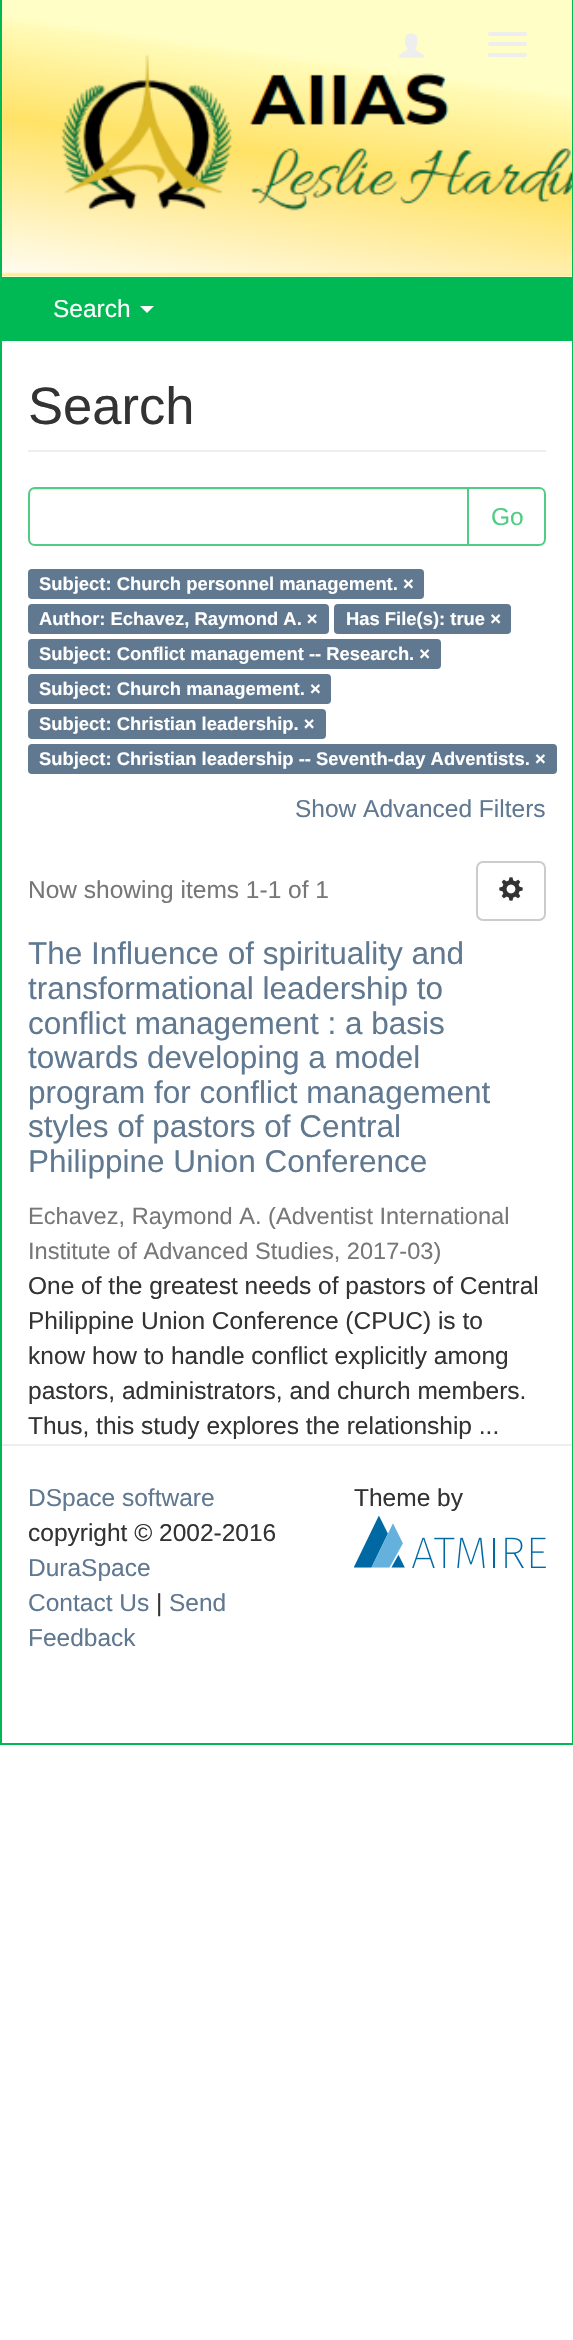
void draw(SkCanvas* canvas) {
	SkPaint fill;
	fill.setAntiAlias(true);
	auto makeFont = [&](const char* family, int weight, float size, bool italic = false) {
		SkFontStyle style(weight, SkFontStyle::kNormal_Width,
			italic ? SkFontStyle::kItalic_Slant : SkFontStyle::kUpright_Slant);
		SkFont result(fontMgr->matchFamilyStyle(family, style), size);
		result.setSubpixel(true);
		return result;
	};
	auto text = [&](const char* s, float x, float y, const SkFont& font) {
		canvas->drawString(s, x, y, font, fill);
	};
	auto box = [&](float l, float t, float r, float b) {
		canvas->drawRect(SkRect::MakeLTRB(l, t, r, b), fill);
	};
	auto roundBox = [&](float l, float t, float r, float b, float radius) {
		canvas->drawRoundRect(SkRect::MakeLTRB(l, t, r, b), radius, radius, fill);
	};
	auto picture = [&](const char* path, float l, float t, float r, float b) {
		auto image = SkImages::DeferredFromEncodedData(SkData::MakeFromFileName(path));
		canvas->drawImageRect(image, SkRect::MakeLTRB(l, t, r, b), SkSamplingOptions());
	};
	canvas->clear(0xFFFFFFFF);
	picture("image0.png", 2, 0, 572, 277);
	fill.setColor(0xFF00B955);
	box(572, 0, 573, 277);
	box(0, 0, 2, 277);
	picture("image1.png", 399, 33, 424, 58);
	fill.setColor(0xFFEEEEEE);
	roundBox(488, 32, 527, 36, 2);
	roundBox(488, 42, 527, 46, 2);
	roundBox(488, 53, 527, 57, 2);
	fill.setColor(0xFF00B955);
	box(0, 277, 573, 340);
	fill.setColor(0xFFFFFFFF);
	canvas->drawPath(SkPathBuilder().moveTo(140, 306).lineTo(154, 306).lineTo(147, 313).close().detach(), fill);
	fill.setStyle(SkPaint::kStroke_Style);
	fill.setStrokeWidth(2);
	fill.setColor(0xFF00B955);
	canvas->drawRect(SkRect::MakeLTRB(1, 341, 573, 1744), fill);
	fill.setStyle(SkPaint::kFill_Style);
	fill.setColor(0xFFFFFFFF);
	box(2, 341, 572, 342);
	fill.setColor(0xFFEEEEEE);
	box(28, 450, 546, 452);
	fill.setStyle(SkPaint::kStroke_Style);
	fill.setColor(0xFF50CC84);
	canvas->drawPath(SkPathBuilder().moveTo(468, 488).lineTo(539, 488).cubicTo(542.5f, 488, 545, 490.5f, 545, 494).lineTo(545, 539).cubicTo(545, 542.5f, 542.5f, 545, 539, 545).lineTo(468, 545).close().detach(), fill);
	fill.setStyle(SkPaint::kFill_Style);
	fill.setColor(0xFFFFFFFF);
	canvas->drawPath(SkPathBuilder().moveTo(35, 487).lineTo(469, 487).lineTo(469, 546).lineTo(35, 546).cubicTo(31, 546, 28, 543, 28, 539).lineTo(28, 494).cubicTo(28, 490, 31, 487, 35, 487).close().detach(), fill);
	fill.setColor(0xFFECECEC);
	canvas->drawPath(SkPathBuilder().moveTo(35, 490).lineTo(467, 490).lineTo(467, 488).lineTo(35, 488).cubicTo(31, 488, 30, 492, 30, 495).cubicTo(30, 492, 32, 490, 35, 490).close().detach(), fill);
	fill.setStyle(SkPaint::kStroke_Style);
	fill.setColor(0xFF50CC84);
	canvas->drawPath(SkPathBuilder().moveTo(35, 488).lineTo(468, 488).lineTo(468, 545).lineTo(35, 545).cubicTo(31.5f, 545, 29, 542.5f, 29, 539).lineTo(29, 494).cubicTo(29, 490.5f, 31.5f, 488, 35, 488).close().detach(), fill);
	fill.setStyle(SkPaint::kFill_Style);
	fill.setColor(0xFF607890);
	roundBox(28, 569, 424, 599, 4);
	roundBox(28, 604, 329, 634, 4);
	roundBox(334, 604, 511, 634, 4);
	roundBox(28, 639, 441, 669, 4);
	roundBox(28, 674, 331, 704, 4);
	roundBox(28, 709, 326, 739, 4);
	roundBox(28, 744, 557, 774, 4);
	fill.setStyle(SkPaint::kStroke_Style);
	fill.setColor(0xFFCCCCCC);
	canvas->drawRoundRect(SkRect::MakeLTRB(477, 862, 545, 920), 6, 6, fill);
	picture("image2.png", 499, 877, 523, 901);
	fill.setStyle(SkPaint::kFill_Style);
	fill.setColor(0xFFEEEEEE);
	box(2, 1444, 572, 1446);
	picture("image3.png", 354, 1516, 546, 1568);
	auto font1 = makeFont("Liberation Sans", 400, 24.5f);
	fill.setColor(0xFFFFFFFF);
	text("Search", 53, 317, font1);
	auto font2 = makeFont("Liberation Sans", 400, 52.5f);
	fill.setColor(0xFF333333);
	text("Search", 28, 424, font2);
	fill.setColor(0xFF50CC84);
	text("Go", 491, 525, font1);
	auto font3 = makeFont("Liberation Sans", 700, 18.4f);
	fill.setColor(0xFFFFFFFF);
	text("Subject: Church personnel management. ×", 39, 590, font3);
	text("Author: Echavez, Raymond A. ×", 39, 625, font3);
	text("Has File(s): true ×", 346, 625, font3);
	text("Subject: Conflict management -- Research. ×", 39, 660, font3);
	text("Subject: Church management. ×", 39, 695, font3);
	text("Subject: Christian leadership. ×", 39, 730, font3);
	text("Subject: Christian leadership -- Seventh-day Adventists. ×", 39, 765, font3);
	fill.setColor(0xFF607890);
	text("Show Advanced Filters", 295, 817, font1);
	fill.setColor(0xFF777777);
	text("Now showing items 1-1 of 1", 28, 898, font1);
	auto font4 = makeFont("Liberation Sans", 400, 31.5f);
	fill.setColor(0xFF607890);
	text("The Influence of spirituality and", 28, 964, font4);
	text("transformational leadership to", 28, 999, font4);
	text("conflict management : a basis", 28, 1034, font4);
	text("towards developing a model", 28, 1068, font4);
	text("program for conflict management", 28, 1103, font4);
	text("styles of pastors of Central", 28, 1137, font4);
	text("Philippine Union Conference", 28, 1172, font4);
	auto font5 = makeFont("Liberation Sans", 400, 23.6f);
	fill.setColor(0xFF777777);
	text("Echavez, Raymond A. (Adventist International", 28, 1224, font5);
	text("Institute of Advanced Studies, 2017-03)", 28, 1259, font5);
	fill.setColor(0xFF333333);
	text("One of the greatest needs of pastors of Central", 28, 1294, font1);
	text("Philippine Union Conference (CPUC) is to", 28, 1329, font1);
	text("know how to handle conflict explicitly among", 28, 1364, font1);
	text("pastors, administrators, and church members.", 28, 1399, font1);
	text("Thus, this study explores the relationship ...", 28, 1434, font1);
	fill.setColor(0xFF607890);
	text("DSpace software", 28, 1506, font1);
	fill.setColor(0xFF333333);
	text("copyright © 2002-2016", 28, 1541, font1);
	fill.setColor(0xFF607890);
	text("DuraSpace", 28, 1576, font1);
	text("Contact Us", 28, 1611, font1);
	fill.setColor(0xFF333333);
	text("|", 156, 1611, font1);
	fill.setColor(0xFF607890);
	text("Send", 169, 1611, font1);
	text("Feedback", 28, 1646, font1);
	fill.setColor(0xFF333333);
	text("Theme by", 354, 1506, font1);
}
